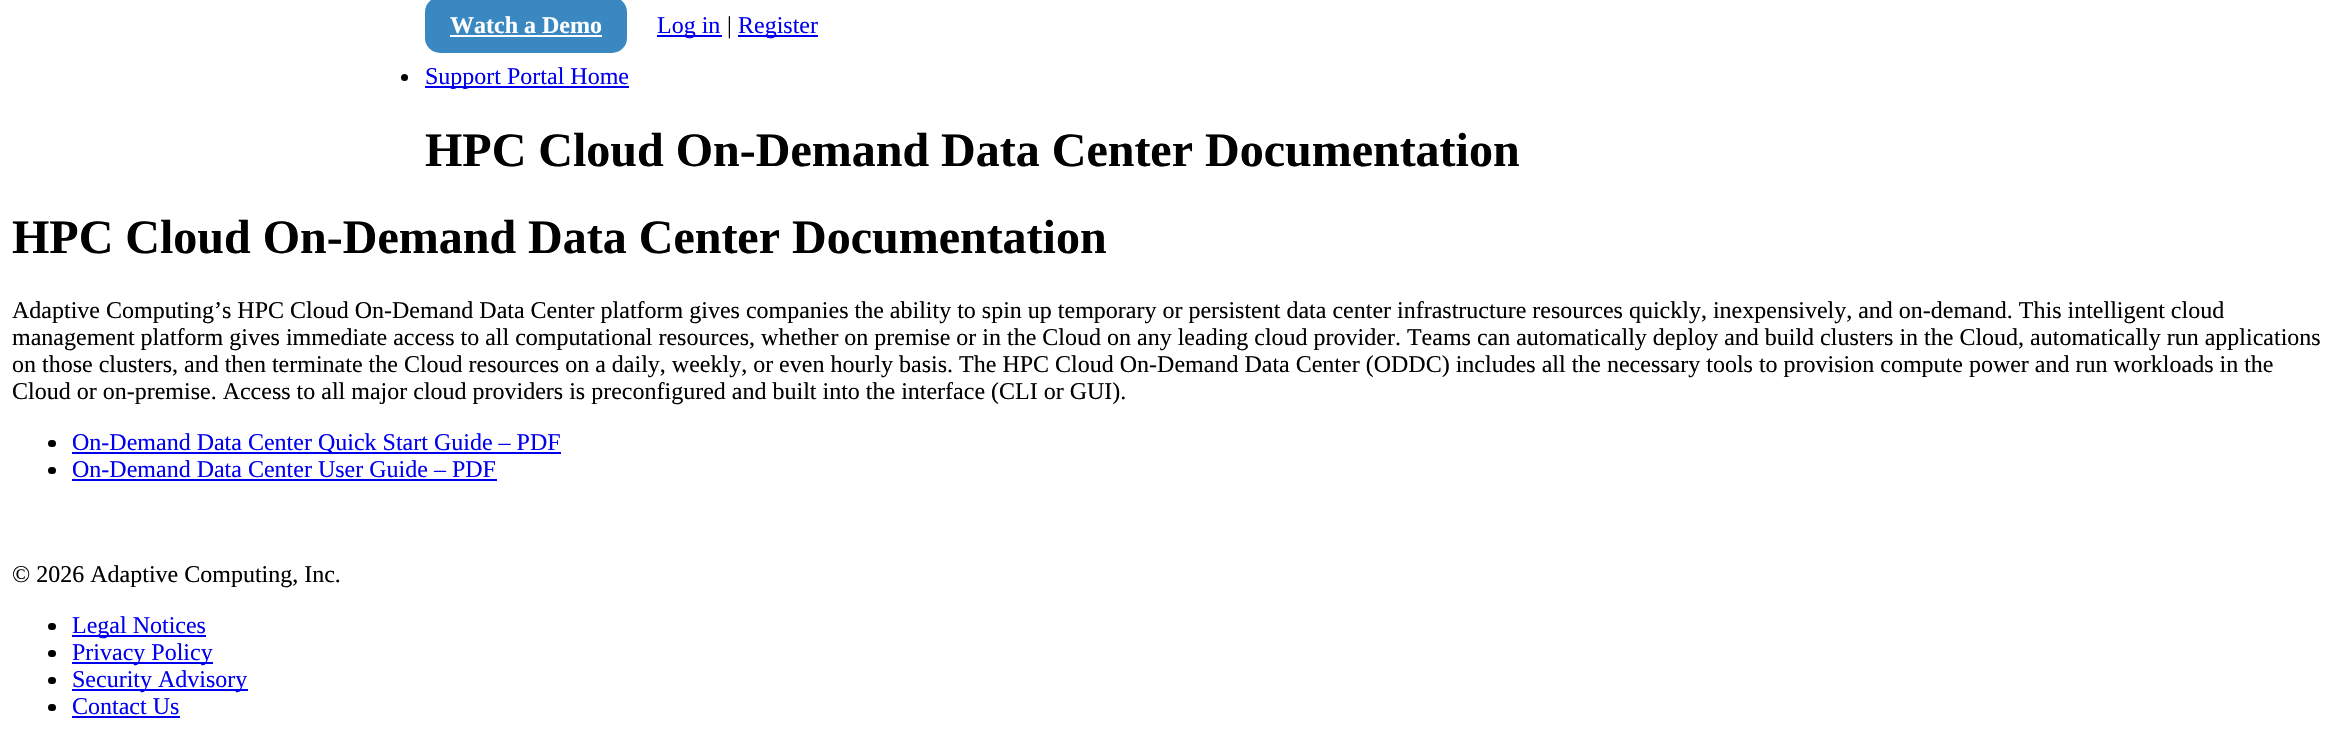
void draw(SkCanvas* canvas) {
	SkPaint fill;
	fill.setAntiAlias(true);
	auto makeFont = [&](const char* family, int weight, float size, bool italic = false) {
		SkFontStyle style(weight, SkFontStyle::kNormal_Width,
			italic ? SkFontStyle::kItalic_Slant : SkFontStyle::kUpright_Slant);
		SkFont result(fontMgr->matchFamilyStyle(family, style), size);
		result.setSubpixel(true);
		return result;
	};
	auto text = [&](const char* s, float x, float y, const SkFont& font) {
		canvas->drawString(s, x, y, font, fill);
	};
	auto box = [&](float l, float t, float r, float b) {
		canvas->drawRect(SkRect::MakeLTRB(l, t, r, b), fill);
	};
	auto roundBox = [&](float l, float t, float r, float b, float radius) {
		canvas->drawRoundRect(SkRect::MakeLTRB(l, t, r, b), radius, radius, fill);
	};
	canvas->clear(0xFFFFFFFF);
	fill.setColor(0xFF3988C2);
	roundBox(425, -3, 627, 53, 15);
	fill.setColor(0xFFFFFFFF);
	box(450, 35, 602, 37);
	fill.setColor(0xFF0000EE);
	box(657, 35, 722, 37);
	box(738, 35, 818, 37);
	fill.setColor(0xFF000000);
	canvas->drawCircle(404.5f, 77.5f, 3.5f, fill);
	fill.setColor(0xFF0000EE);
	box(425, 86, 629, 88);
	fill.setColor(0xFF000000);
	roundBox(48, 440, 56, 447, 3.5f);
	fill.setColor(0xFF0000EE);
	box(72, 452, 561, 454);
	fill.setColor(0xFF000000);
	roundBox(48, 467, 56, 474, 3.5f);
	fill.setColor(0xFF0000EE);
	box(72, 479, 497, 481);
	fill.setColor(0xFF000000);
	roundBox(48, 623, 56, 630, 3.5f);
	fill.setColor(0xFF0000EE);
	box(72, 635, 206, 637);
	fill.setColor(0xFF000000);
	roundBox(48, 650, 56, 657, 3.5f);
	fill.setColor(0xFF0000EE);
	box(72, 662, 213, 664);
	fill.setColor(0xFF000000);
	roundBox(48, 677, 56, 684, 3.5f);
	fill.setColor(0xFF0000EE);
	box(72, 689, 248, 691);
	fill.setColor(0xFF000000);
	roundBox(48, 704, 56, 711, 3.5f);
	fill.setColor(0xFF0000EE);
	box(72, 716, 180, 718);
	auto font1 = makeFont("Liberation Serif", 700, 24);
	fill.setColor(0xFFFFFFFF);
	text("Watch a Demo", 450, 33, font1);
	auto font2 = makeFont("Liberation Serif", 400, 24);
	fill.setColor(0xFF0000EE);
	text("Log in", 657, 33, font2);
	fill.setColor(0xFF000000);
	text("|", 727, 33, font2);
	fill.setColor(0xFF0000EE);
	text("Register", 738, 33, font2);
	text("Support Portal Home", 425, 84, font2);
	auto font3 = makeFont("Liberation Serif", 700, 48);
	fill.setColor(0xFF000000);
	text("HPC Cloud On-Demand Data Center Documentation", 425, 166, font3);
	text("HPC Cloud On-Demand Data Center Documentation", 12, 253, font3);
	text("Adaptive Computing’s HPC Cloud On-Demand Data Center platform gives companies the ability to spin up temporary or persistent data center infrastructure resources quickly, inexpensively, and on-demand. This intelligent cloud", 12, 318, font2);
	text("management platform gives immediate access to all computational resources, whether on premise or in the Cloud on any leading cloud provider. Teams can automatically deploy and build clusters in the Cloud, automatically run applications", 12, 345, font2);
	text("on those clusters, and then terminate the Cloud resources on a daily, weekly, or even hourly basis. The HPC Cloud On-Demand Data Center (ODDC) includes all the necessary tools to provision compute power and run workloads in the", 12, 372, font2);
	text("Cloud or on-premise. Access to all major cloud providers is preconfigured and built into the interface (CLI or GUI).", 12, 399, font2);
	fill.setColor(0xFF0000EE);
	text("On-Demand Data Center Quick Start Guide – PDF", 72, 450, font2);
	text("On-Demand Data Center User Guide – PDF", 72, 477, font2);
	fill.setColor(0xFF000000);
	text("© 2026 Adaptive Computing, Inc.", 12, 582, font2);
	fill.setColor(0xFF0000EE);
	text("Legal Notices", 72, 633, font2);
	text("Privacy Policy", 72, 660, font2);
	text("Security Advisory", 72, 687, font2);
	text("Contact Us", 72, 714, font2);
}
